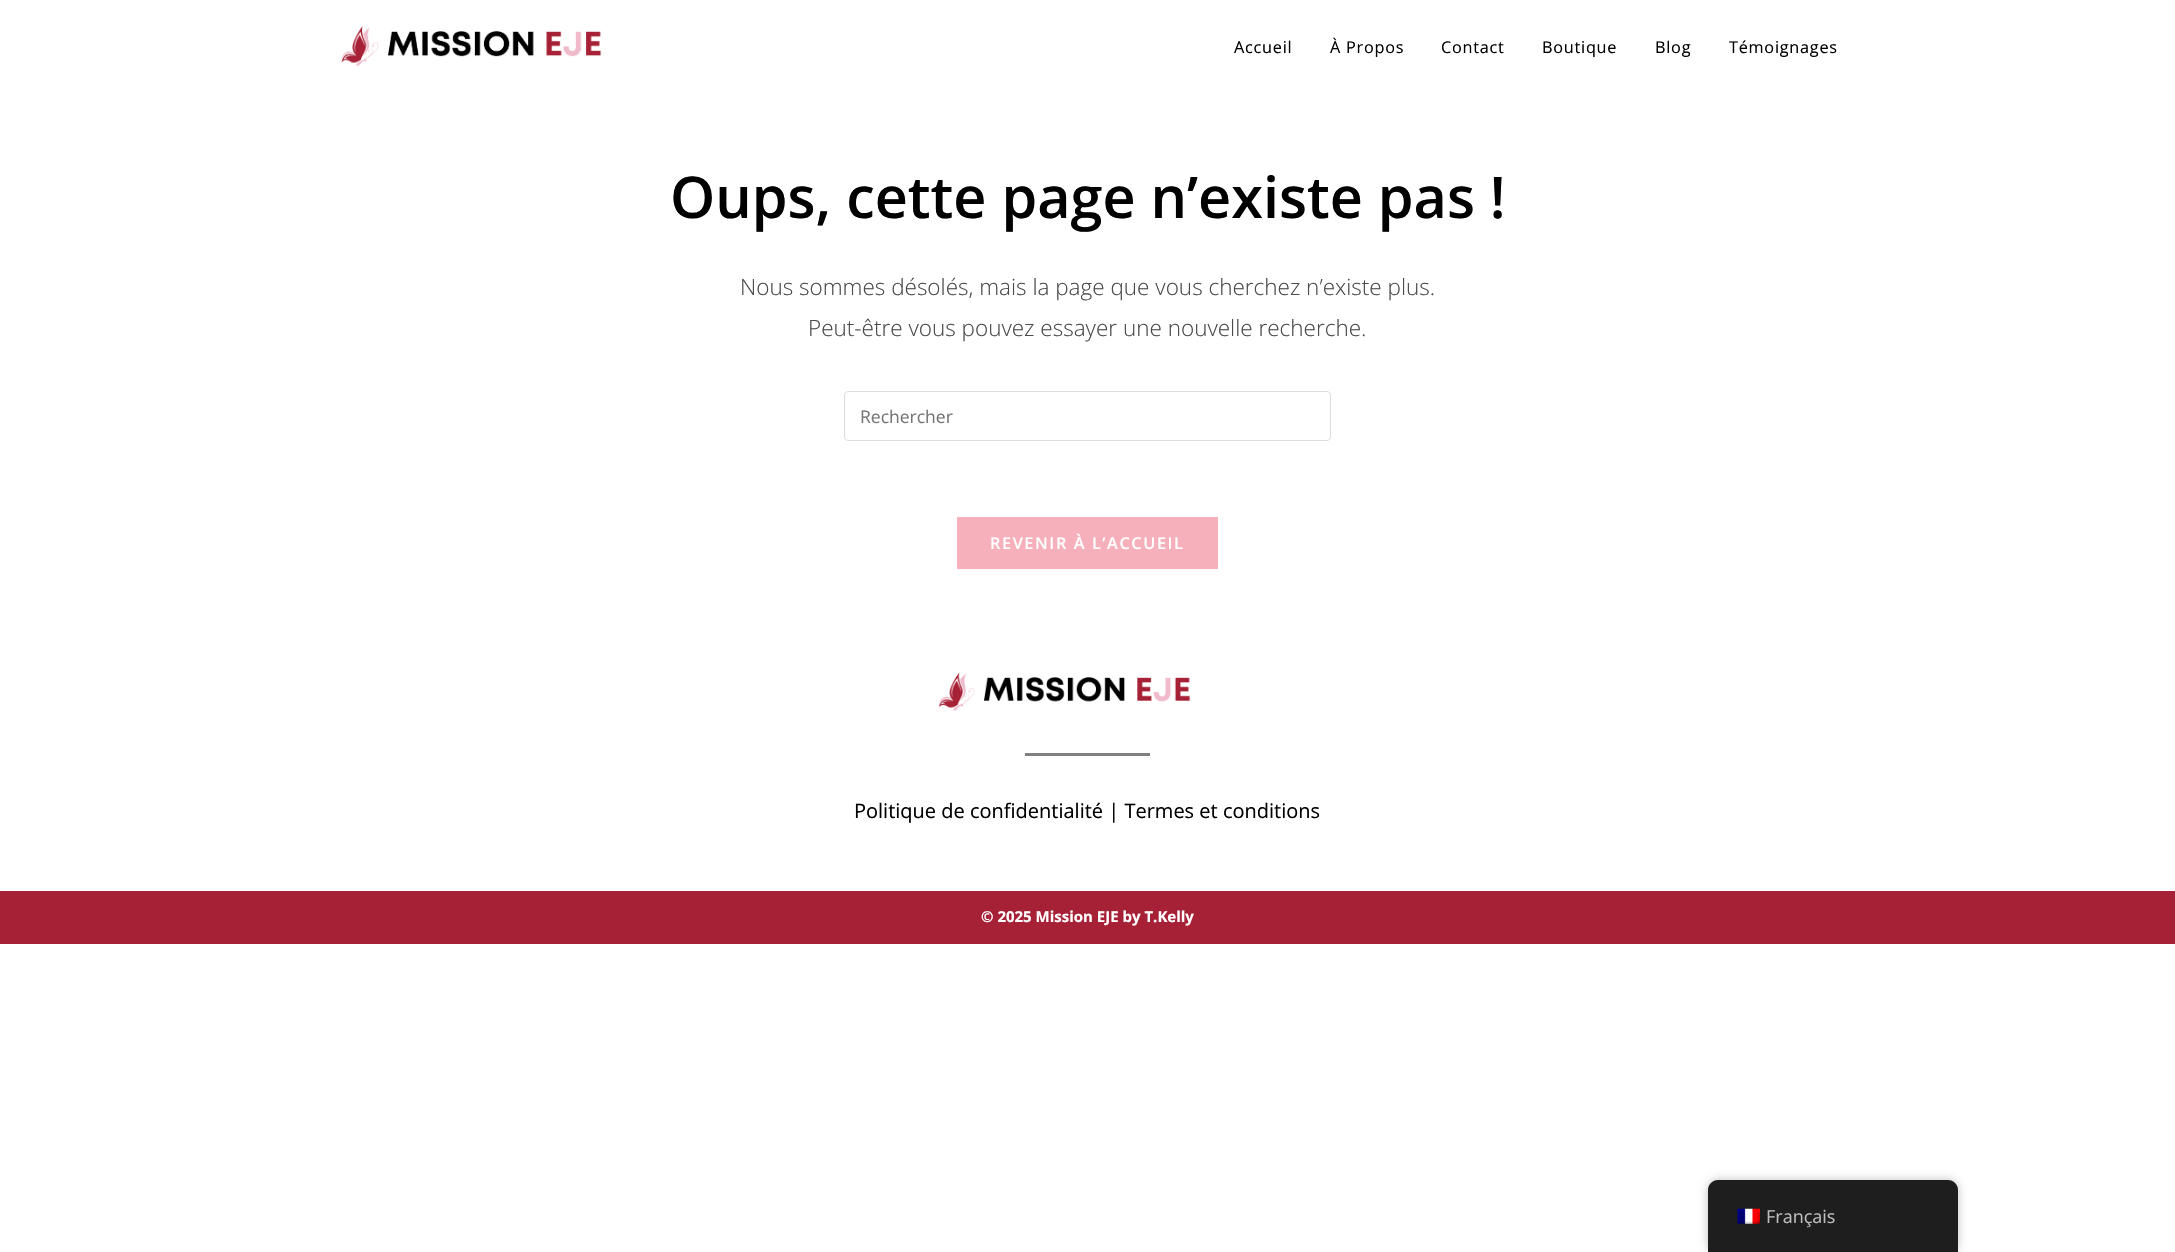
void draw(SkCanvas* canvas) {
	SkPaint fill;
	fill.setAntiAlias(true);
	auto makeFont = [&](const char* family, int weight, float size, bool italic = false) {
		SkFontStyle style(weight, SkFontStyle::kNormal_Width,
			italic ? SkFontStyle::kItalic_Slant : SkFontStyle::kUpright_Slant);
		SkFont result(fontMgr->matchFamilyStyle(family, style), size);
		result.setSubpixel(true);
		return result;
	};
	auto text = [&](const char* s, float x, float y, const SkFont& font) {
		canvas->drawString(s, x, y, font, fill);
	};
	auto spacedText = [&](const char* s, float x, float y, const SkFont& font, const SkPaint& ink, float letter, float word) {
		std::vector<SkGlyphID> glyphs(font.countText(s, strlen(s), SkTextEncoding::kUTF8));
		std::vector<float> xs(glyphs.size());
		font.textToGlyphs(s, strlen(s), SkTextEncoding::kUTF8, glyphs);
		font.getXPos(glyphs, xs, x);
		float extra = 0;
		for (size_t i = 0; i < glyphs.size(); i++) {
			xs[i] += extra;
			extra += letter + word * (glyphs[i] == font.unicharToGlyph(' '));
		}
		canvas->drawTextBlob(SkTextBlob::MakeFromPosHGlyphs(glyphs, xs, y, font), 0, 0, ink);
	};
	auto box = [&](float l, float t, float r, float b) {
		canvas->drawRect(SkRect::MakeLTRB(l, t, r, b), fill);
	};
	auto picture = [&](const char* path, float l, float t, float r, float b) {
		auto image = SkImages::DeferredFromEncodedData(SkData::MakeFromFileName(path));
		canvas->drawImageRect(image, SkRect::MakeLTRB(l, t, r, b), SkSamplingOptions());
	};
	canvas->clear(0xFFFFFFFF);
	picture("image0.png", 341, 25, 602, 66);
	fill.setStyle(SkPaint::kStroke_Style);
	fill.setStrokeWidth(1);
	fill.setColor(0xFFDDDDDD);
	canvas->drawRoundRect(SkRect::MakeLTRB(844.5f, 391.5f, 1330.5f, 440.5f), 3.5f, 3.5f, fill);
	fill.setStyle(SkPaint::kFill_Style);
	fill.setColor(0xFFF6B0BC);
	box(957, 517, 1218, 569);
	picture("image1.png", 938, 672, 1190, 711);
	fill.setColor(0xFF808080);
	box(1025, 753, 1150, 756);
	fill.setColor(0xFFA72136);
	box(0, 891, 2175, 944);
	fill.setColor(0x40000000);
	fill.setMaskFilter(SkMaskFilter::MakeBlur(kNormal_SkBlurStyle, 5));
	canvas->drawRoundRect(SkRect::MakeLTRB(1708, 1180, 1958, 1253), 10, 10, fill);
	fill.setMaskFilter(nullptr);
	fill.setColor(0xFF1E1E1E);
	canvas->drawPath(SkPathBuilder().moveTo(1718, 1180).lineTo(1948, 1180).cubicTo(1953.5f, 1180, 1958, 1184.5f, 1958, 1190).lineTo(1958, 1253).lineTo(1708, 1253).lineTo(1708, 1190).cubicTo(1708, 1184.5f, 1712.5f, 1180, 1718, 1180).close().detach(), fill);
	picture("image2.png", 1737, 1208, 1760, 1224);
	auto font1 = makeFont("Open Sans", 400, 16.25f);
	fill.setColor(0xFF000000);
	spacedText("Accueil", 1234, 53, font1, fill, 0.75f, 0);
	spacedText("À Propos", 1330, 53, font1, fill, 0.75f, 0);
	spacedText("Contact", 1441, 53, font1, fill, 0.75f, 0);
	spacedText("Boutique", 1542, 53, font1, fill, 0.75f, 0);
	spacedText("Blog", 1655, 53, font1, fill, 0.75f, 0);
	spacedText("Témoignages", 1729, 53, font1, fill, 0.75f, 0);
	auto font2 = makeFont("Open Sans", 600, 57.5f);
	text("Oups, cette page n’existe pas !", 670, 218, font2);
	auto font3 = makeFont("Open Sans", 300, 22.5f);
	fill.setColor(0xFF4A4A4A);
	text("Nous sommes désolés, mais la page que vous cherchez n’existe plus.", 740, 295, font3);
	text("Peut-être vous pouvez essayer une nouvelle recherche.", 808, 336, font3);
	auto font4 = makeFont("Open Sans", 400, 17.5f);
	fill.setColor(0xFF757575);
	text("Rechercher", 860, 423, font4);
	auto font5 = makeFont("Open Sans", 600, 16.25f);
	fill.setColor(0xFFFFFFFF);
	spacedText("REVENIR À L’ACCUEIL", 990, 549, font5, fill, 1.6f, 0);
	auto font6 = makeFont("Open Sans", 400, 20);
	fill.setColor(0xFF000000);
	text("Politique de confidentialité | Termes et conditions", 854, 818, font6);
	auto font7 = makeFont("Open Sans", 700, 15);
	fill.setColor(0xFFFFFFFF);
	text("© 2025 Mission EJE by T.Kelly", 981, 922, font7);
	auto font8 = makeFont("Open Sans", 400, 18);
	fill.setColor(0xFFBDBDBD);
	text("Français", 1766, 1223, font8);
}
